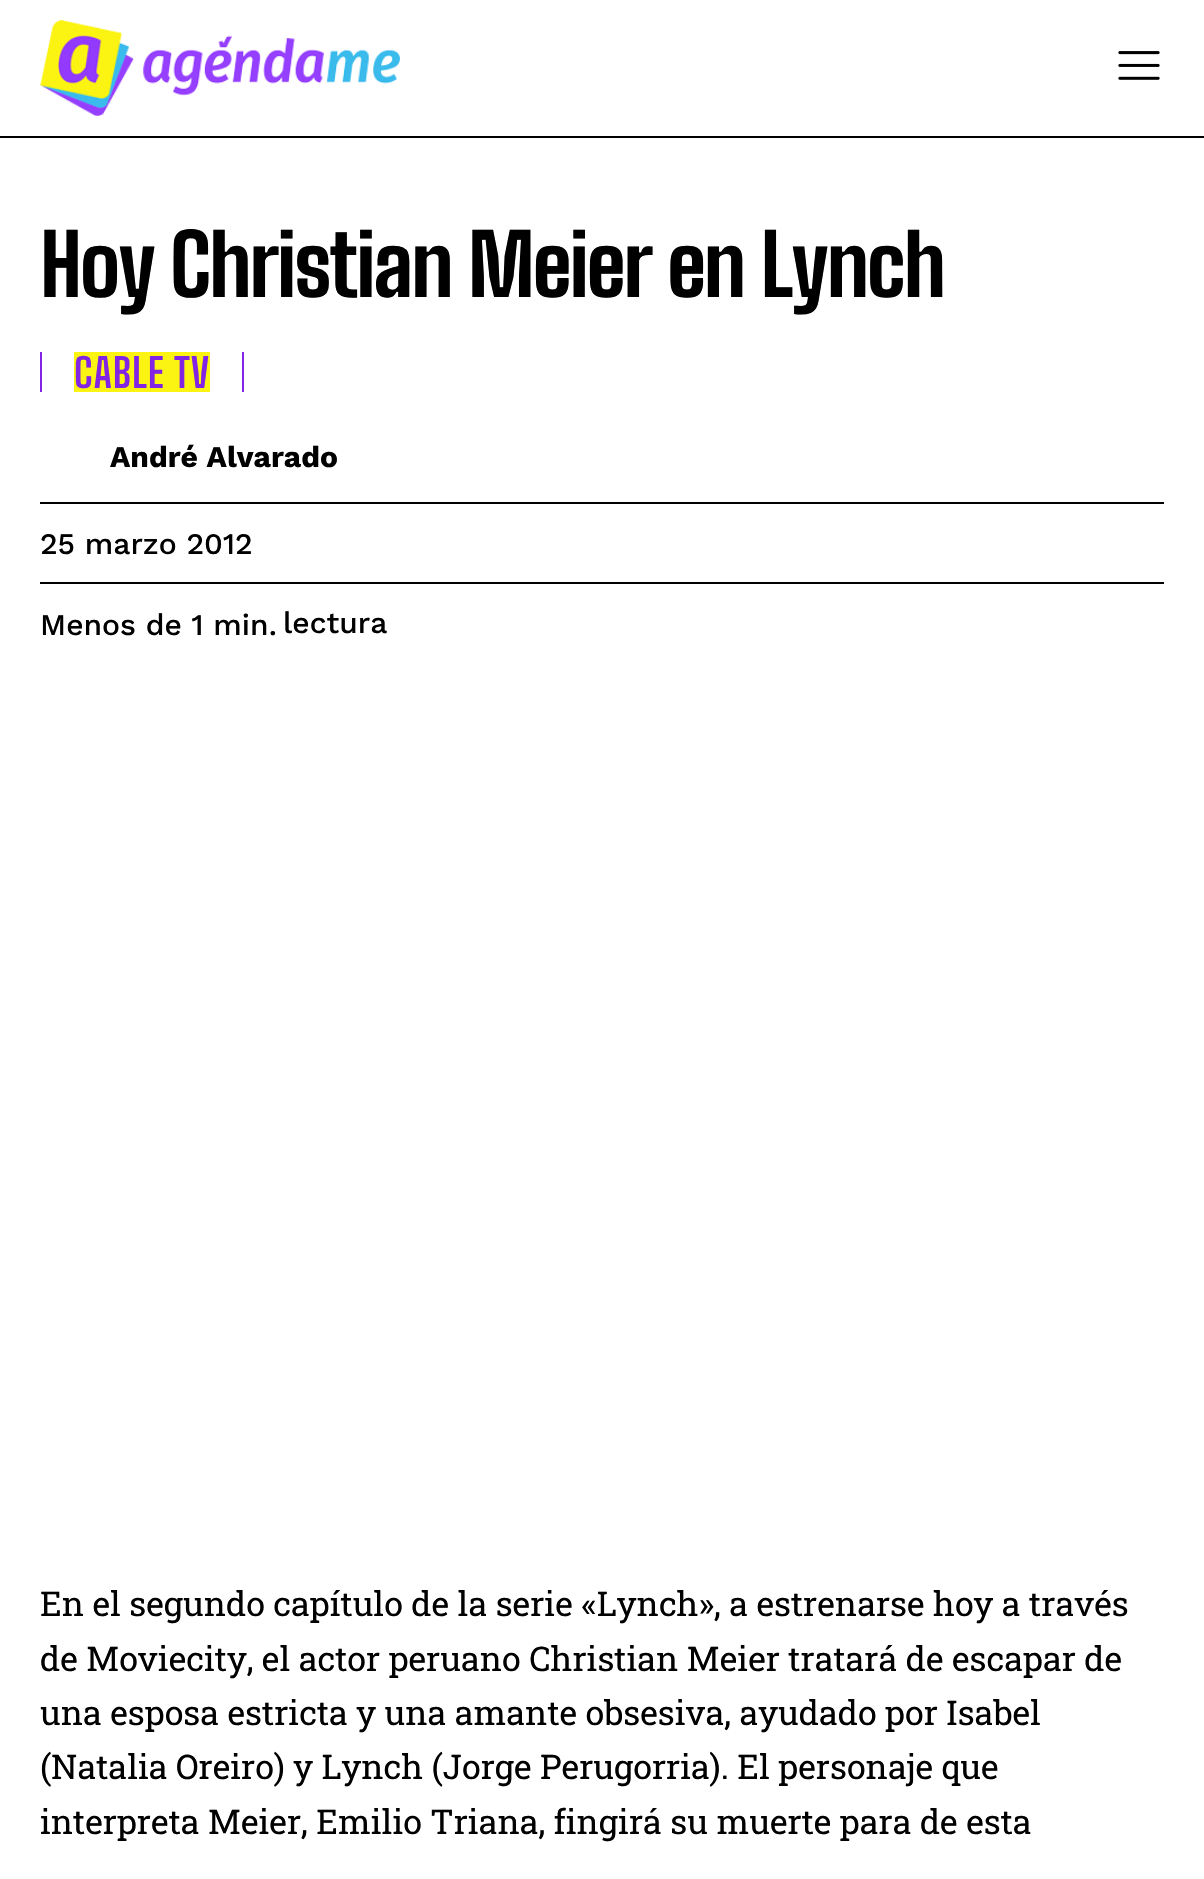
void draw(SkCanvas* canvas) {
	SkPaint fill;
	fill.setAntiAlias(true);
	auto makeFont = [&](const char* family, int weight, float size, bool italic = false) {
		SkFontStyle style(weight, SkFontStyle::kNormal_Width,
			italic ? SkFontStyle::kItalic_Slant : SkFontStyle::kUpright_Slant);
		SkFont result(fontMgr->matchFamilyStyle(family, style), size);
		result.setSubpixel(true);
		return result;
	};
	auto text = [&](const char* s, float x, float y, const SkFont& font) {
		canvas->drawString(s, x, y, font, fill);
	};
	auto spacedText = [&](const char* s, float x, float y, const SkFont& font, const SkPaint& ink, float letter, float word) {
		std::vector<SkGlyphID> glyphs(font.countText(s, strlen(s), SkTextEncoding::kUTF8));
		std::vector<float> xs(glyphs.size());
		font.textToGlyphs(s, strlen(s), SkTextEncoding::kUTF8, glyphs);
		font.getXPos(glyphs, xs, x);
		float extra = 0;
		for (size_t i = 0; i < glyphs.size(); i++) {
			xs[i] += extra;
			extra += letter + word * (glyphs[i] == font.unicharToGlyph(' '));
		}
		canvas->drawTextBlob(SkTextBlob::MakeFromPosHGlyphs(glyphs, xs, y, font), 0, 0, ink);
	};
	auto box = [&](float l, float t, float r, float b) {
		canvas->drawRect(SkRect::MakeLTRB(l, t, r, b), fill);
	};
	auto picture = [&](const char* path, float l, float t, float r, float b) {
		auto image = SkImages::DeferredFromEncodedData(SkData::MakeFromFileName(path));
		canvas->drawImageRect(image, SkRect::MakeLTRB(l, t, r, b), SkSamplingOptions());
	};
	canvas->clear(0xFFFFFFFF);
	fill.setColor(0xFF000000);
	box(0, 136, 1204, 138);
	picture("image0.png", 40, 20, 400, 116);
	picture("image1.png", 1118, 51, 1160, 80);
	fill.setColor(0xFF8224E3);
	box(242, 352, 244, 392);
	box(40, 352, 42, 392);
	fill.setColor(0xFFFBF312);
	box(74, 352, 210, 392);
	fill.setColor(0xFF000000);
	box(40, 502, 1164, 504);
	box(40, 582, 1164, 584);
	auto font1 = makeFont("Big Shoulders Text", 100, 84);
	spacedText("Hoy Christian Meier en Lynch", 40, 297, font1, fill, -2, 0);
	auto font2 = makeFont("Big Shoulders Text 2", 100, 40);
	fill.setColor(0xFF8224E3);
	spacedText("CABLE TV", 74, 388, font2, fill, 1, 0);
	auto font3 = makeFont("Work Sans", 700, 30);
	fill.setColor(0xFF000000);
	text("André Alvarado", 110, 467, font3);
	auto font4 = makeFont("Work Sans", 500, 30);
	text("25 marzo 2012", 40, 554, font4);
	text("Menos de 1 min.", 40, 635, font4);
	text("lectura", 283, 633, font4);
	auto font5 = makeFont("Roboto Slab", 400, 34);
	text("En el segundo capítulo de la serie «Lynch», a estrenarse hoy a través", 40, 1616, font5);
	text("de Moviecity, el actor peruano Christian Meier tratará de escapar de", 40, 1671, font5);
	text("una esposa estricta y una amante obsesiva, ayudado por Isabel", 40, 1725, font5);
	text("(Natalia Oreiro) y Lynch (Jorge Perugorria). El personaje que", 40, 1779, font5);
	text("interpreta Meier, Emilio Triana, fingirá su muerte para de esta", 40, 1834, font5);
}
